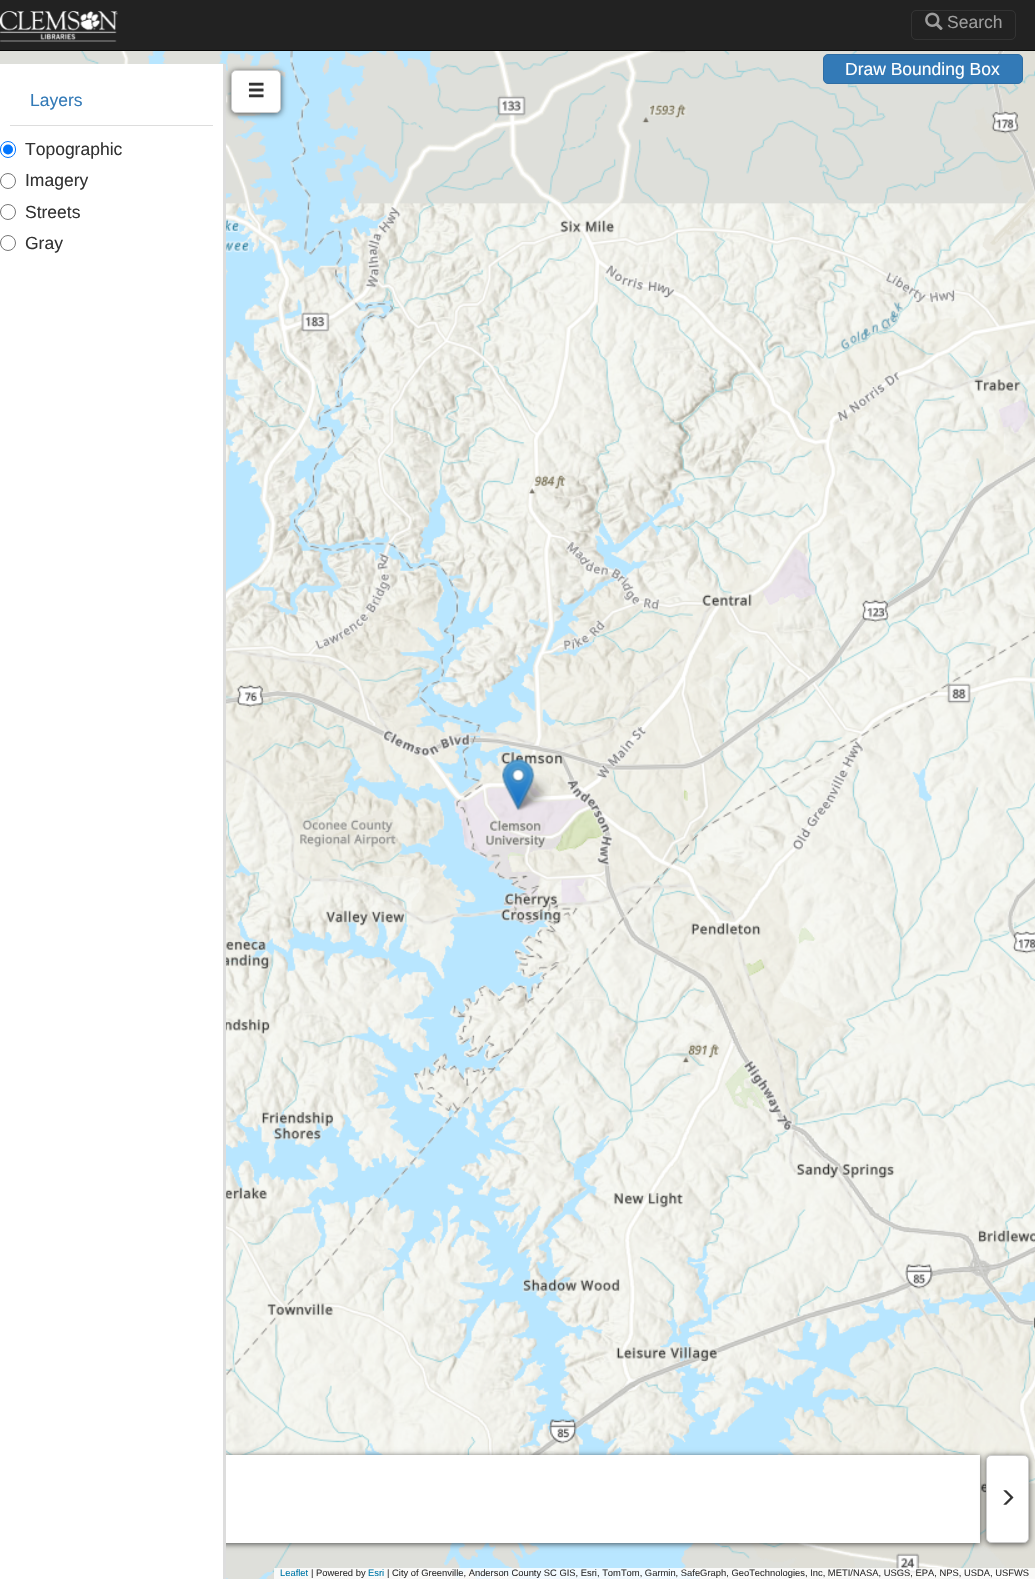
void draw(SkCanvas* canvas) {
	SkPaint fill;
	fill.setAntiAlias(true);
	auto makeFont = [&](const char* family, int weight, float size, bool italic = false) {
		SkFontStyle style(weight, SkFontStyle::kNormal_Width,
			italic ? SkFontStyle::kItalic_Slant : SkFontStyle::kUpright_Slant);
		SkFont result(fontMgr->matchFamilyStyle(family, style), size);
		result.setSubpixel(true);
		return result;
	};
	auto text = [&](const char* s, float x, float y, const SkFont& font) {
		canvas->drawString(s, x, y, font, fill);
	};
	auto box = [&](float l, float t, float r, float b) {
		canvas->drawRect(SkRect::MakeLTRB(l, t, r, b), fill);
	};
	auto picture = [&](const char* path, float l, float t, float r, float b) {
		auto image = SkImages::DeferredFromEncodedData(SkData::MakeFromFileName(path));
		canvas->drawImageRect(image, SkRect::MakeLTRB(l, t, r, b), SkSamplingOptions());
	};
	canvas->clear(0xFFDDDDDD);
	fill.setColor(0xFF222222);
	box(0, 0, 1035, 50);
	fill.setColor(0xFF080808);
	box(0, 50, 1035, 51);
	picture("image0.png", 0, 11, 118, 42);
	fill.setStyle(SkPaint::kStroke_Style);
	fill.setStrokeWidth(1);
	fill.setColor(0xFF333333);
	canvas->drawRoundRect(SkRect::MakeLTRB(911.5f, 10.5f, 1015.5f, 39.5f), 4.5f, 4.5f, fill);
	picture("image1.png", 925, 12, 943, 30);
	picture("image3.png", 0, 51, 1035, 1579);
	fill.setStyle(SkPaint::kFill_Style);
	fill.setColor(0xA6000000);
	fill.setMaskFilter(SkMaskFilter::MakeBlur(kNormal_SkBlurStyle, 3));
	canvas->drawRect(SkRect::MakeLTRB(55, 1456, 980, 1544), fill);
	fill.setMaskFilter(nullptr);
	fill.setColor(0xFFFFFFFF);
	box(0, 64, 223, 1579);
	fill.setColor(0xFFDDDDDD);
	box(223, 64, 226, 1579);
	box(10, 125, 213, 126);
	fill.setStyle(SkPaint::kStroke_Style);
	fill.setColor(0xFF0075FF);
	canvas->drawRoundRect(SkRect::MakeLTRB(0.5f, 141.5f, 15.5f, 157.5f), 7.5f, 7.5f, fill);
	fill.setStyle(SkPaint::kFill_Style);
	canvas->drawCircle(8, 149.5f, 5, fill);
	fill.setStyle(SkPaint::kStroke_Style);
	fill.setColor(0xFF767676);
	canvas->drawCircle(8, 181, 7.5f, fill);
	canvas->drawCircle(8, 212, 7.5f, fill);
	canvas->drawCircle(8, 243, 7.5f, fill);
	fill.setStyle(SkPaint::kFill_Style);
	fill.setColor(0xA6000000);
	fill.setMaskFilter(SkMaskFilter::MakeBlur(kNormal_SkBlurStyle, 3));
	canvas->drawRoundRect(SkRect::MakeLTRB(231, 71, 281, 114), 5, 5, fill);
	fill.setMaskFilter(nullptr);
	fill.setColor(0xFFFFFFFF);
	canvas->drawRoundRect(SkRect::MakeLTRB(231.5f, 70.5f, 280.5f, 112.5f), 4.5f, 4.5f, fill);
	fill.setStyle(SkPaint::kStroke_Style);
	fill.setColor(0xFFCCCCCC);
	canvas->drawRoundRect(SkRect::MakeLTRB(231.5f, 70.5f, 280.5f, 112.5f), 4.5f, 4.5f, fill);
	picture("image2.png", 248, 82, 264, 98);
	picture("image5.png", 513, 775, 551, 811);
	picture("image4.png", 502, 758, 535, 811);
	fill.setStyle(SkPaint::kFill_Style);
	fill.setColor(0xFF337AB7);
	canvas->drawRoundRect(SkRect::MakeLTRB(823.5f, 54.5f, 1022.5f, 83.5f), 4.5f, 4.5f, fill);
	fill.setStyle(SkPaint::kStroke_Style);
	fill.setColor(0xFF2E6DA4);
	canvas->drawRoundRect(SkRect::MakeLTRB(823.5f, 54.5f, 1022.5f, 83.5f), 4.5f, 4.5f, fill);
	fill.setStyle(SkPaint::kFill_Style);
	fill.setColor(0xCCFFFFFF);
	box(274, 1568, 1035, 1579);
	fill.setColor(0xFFFFFFFF);
	box(226, 1455, 980, 1543);
	fill.setColor(0xA6000000);
	fill.setMaskFilter(SkMaskFilter::MakeBlur(kNormal_SkBlurStyle, 3));
	canvas->drawRoundRect(SkRect::MakeLTRB(986, 1456, 1029, 1544), 5, 5, fill);
	fill.setMaskFilter(nullptr);
	fill.setColor(0xFFFFFFFF);
	canvas->drawRoundRect(SkRect::MakeLTRB(986.5f, 1455.5f, 1028.5f, 1542.5f), 4.5f, 4.5f, fill);
	fill.setStyle(SkPaint::kStroke_Style);
	fill.setColor(0xFFCCCCCC);
	canvas->drawRoundRect(SkRect::MakeLTRB(986.5f, 1455.5f, 1028.5f, 1542.5f), 4.5f, 4.5f, fill);
	picture("image6.png", 1003, 1490, 1014, 1505);
	auto font1 = makeFont("Liberation Sans", 400, 17.5f);
	fill.setStyle(SkPaint::kFill_Style);
	fill.setColor(0xFF9D9D9D);
	text("Search", 947, 28, font1);
	fill.setColor(0xFF337AB7);
	text("Layers", 30, 106, font1);
	fill.setColor(0xFF333333);
	text("Topographic", 25, 155, font1);
	text("Imagery", 25, 186, font1);
	text("Streets", 25, 218, font1);
	text("Gray", 25, 249, font1);
	fill.setColor(0xFFFFFFFF);
	text("Draw Bounding Box", 845, 75, font1);
	auto font2 = makeFont("Liberation Sans", 400, 9.38f);
	fill.setColor(0xFF0078A8);
	text("Leaflet", 280, 1576, font2);
	fill.setColor(0xFF333333);
	text("| Powered by", 311, 1576, font2);
	fill.setColor(0xFF0078A8);
	text("Esri", 368, 1576, font2);
	fill.setColor(0xFF333333);
	text("| City of Greenville, Anderson County SC GIS, Esri, TomTom, Garmin, SafeGraph, GeoTechnologies, Inc, METI/NASA, USGS, EPA, NPS, USDA, USFWS", 387, 1576, font2);
}
